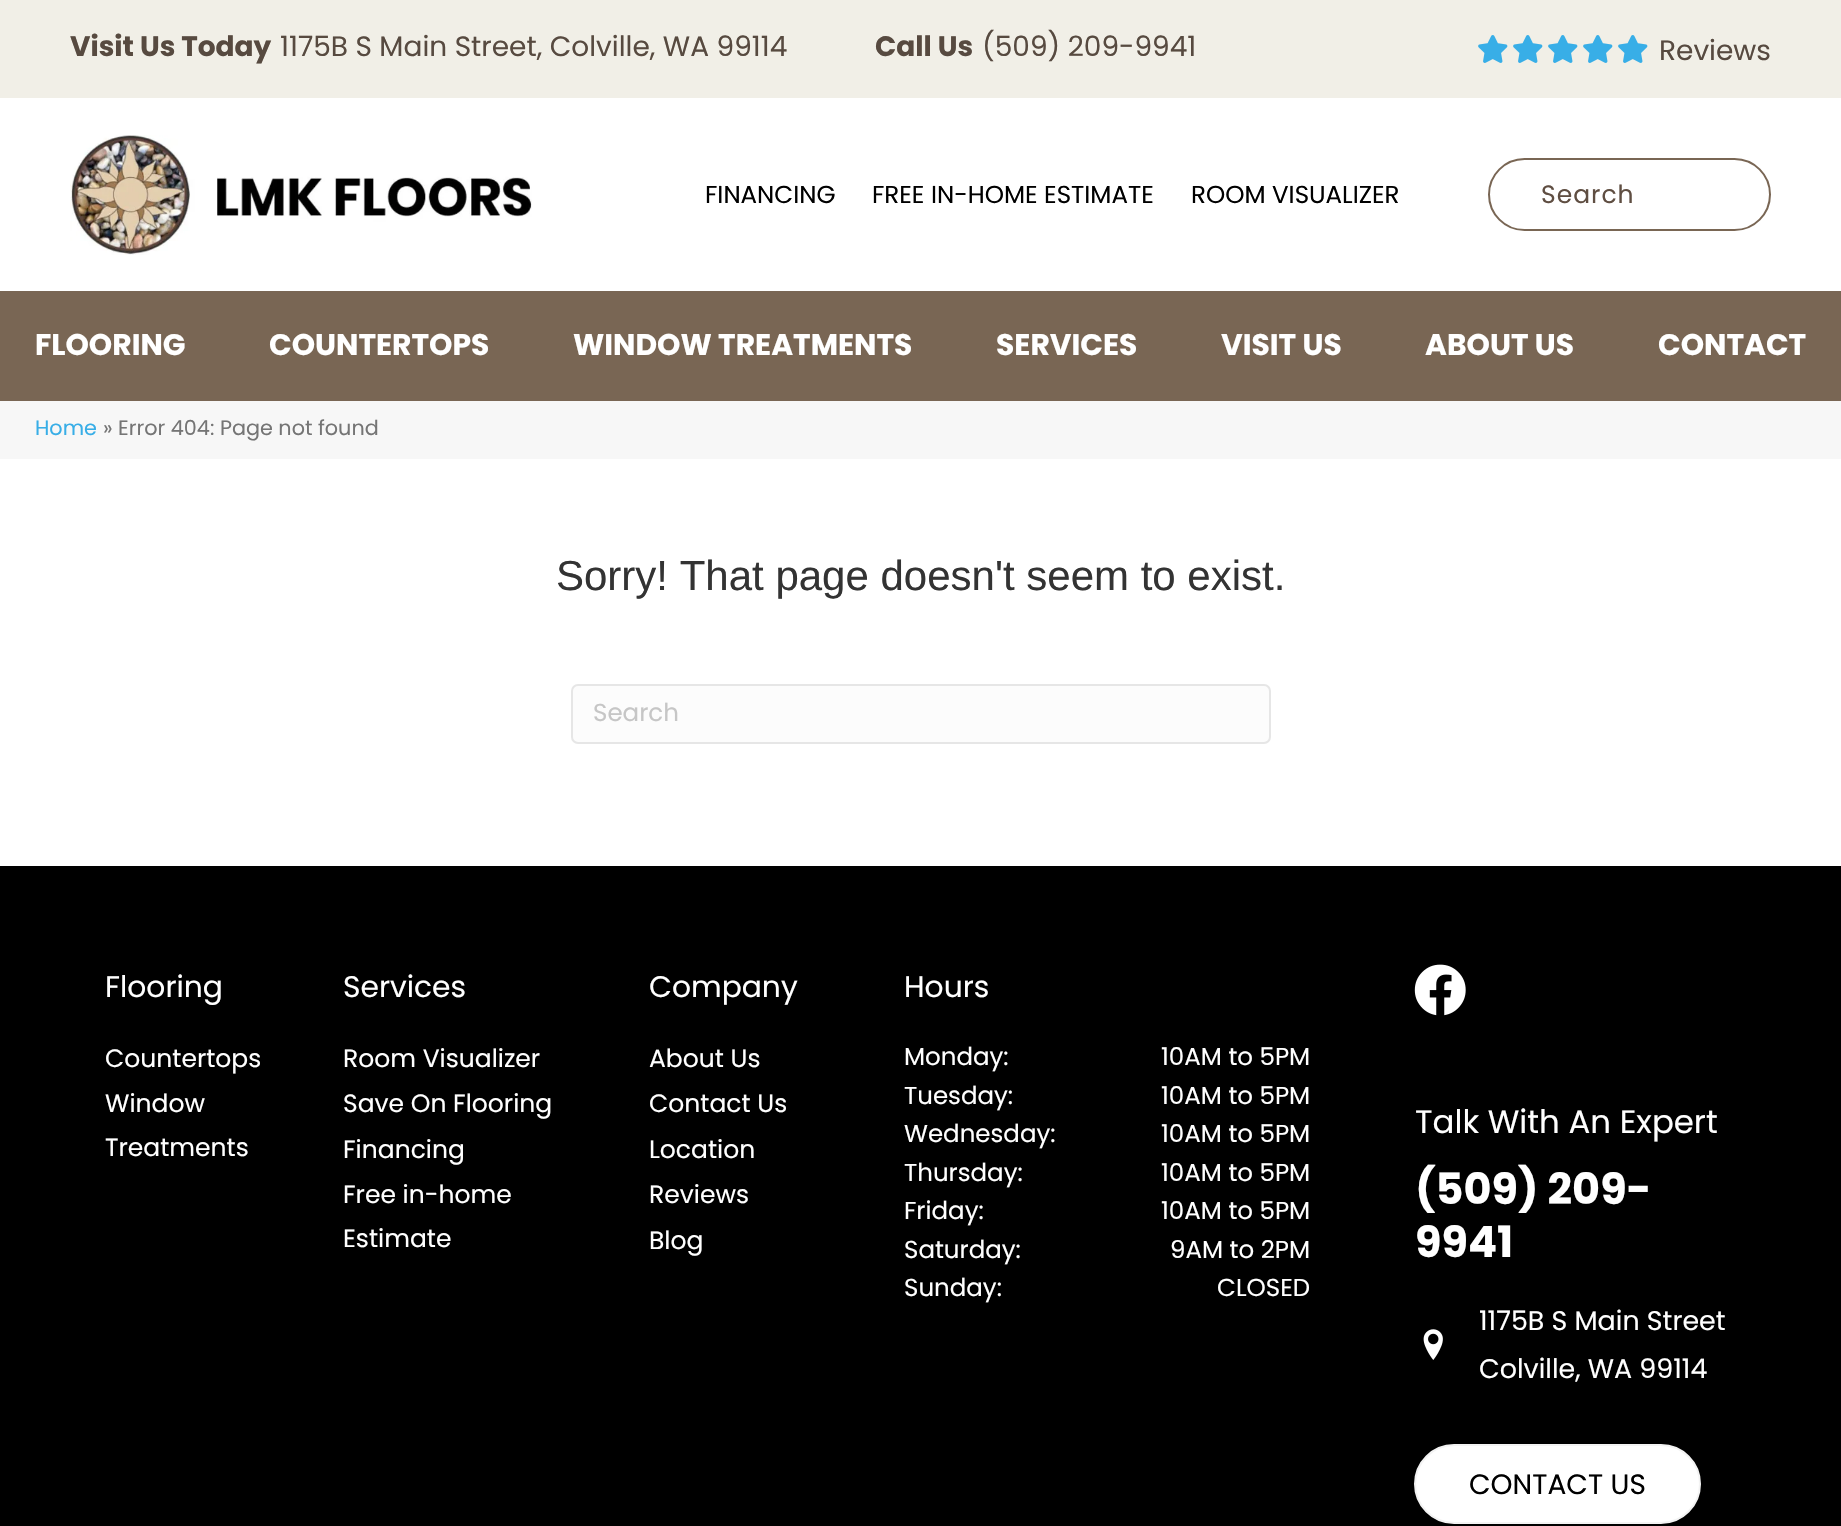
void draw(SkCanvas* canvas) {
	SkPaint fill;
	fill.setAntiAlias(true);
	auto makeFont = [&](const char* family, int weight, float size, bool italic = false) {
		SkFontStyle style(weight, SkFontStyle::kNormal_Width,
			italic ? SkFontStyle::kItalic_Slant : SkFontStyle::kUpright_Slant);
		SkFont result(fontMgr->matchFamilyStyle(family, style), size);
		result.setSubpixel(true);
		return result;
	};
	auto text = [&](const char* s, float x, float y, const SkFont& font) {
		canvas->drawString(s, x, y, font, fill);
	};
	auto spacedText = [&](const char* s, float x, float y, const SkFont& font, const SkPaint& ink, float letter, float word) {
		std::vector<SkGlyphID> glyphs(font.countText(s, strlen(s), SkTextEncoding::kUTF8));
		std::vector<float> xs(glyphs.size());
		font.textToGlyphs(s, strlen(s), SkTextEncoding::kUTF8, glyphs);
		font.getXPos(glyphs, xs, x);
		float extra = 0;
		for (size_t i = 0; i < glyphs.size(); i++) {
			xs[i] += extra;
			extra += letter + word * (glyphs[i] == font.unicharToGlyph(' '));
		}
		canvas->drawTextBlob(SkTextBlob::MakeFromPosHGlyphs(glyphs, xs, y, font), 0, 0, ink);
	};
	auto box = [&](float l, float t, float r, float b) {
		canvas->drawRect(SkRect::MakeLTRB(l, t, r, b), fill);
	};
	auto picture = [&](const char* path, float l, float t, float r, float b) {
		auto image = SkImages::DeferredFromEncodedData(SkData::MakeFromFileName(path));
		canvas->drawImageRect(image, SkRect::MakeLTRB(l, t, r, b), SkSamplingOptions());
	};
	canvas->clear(0xFFFFFFFF);
	fill.setColor(0xFFF1EFE7);
	box(0, 0, 1841, 98);
	picture("image0.png", 1478, 35, 1508, 63);
	picture("image0.png", 1513, 35, 1543, 63);
	picture("image0.png", 1548, 35, 1578, 63);
	picture("image0.png", 1583, 35, 1613, 63);
	picture("image0.png", 1618, 35, 1648, 63);
	picture("image1.png", 70, 135, 532, 255);
	fill.setStyle(SkPaint::kStroke_Style);
	fill.setStrokeWidth(2);
	fill.setColor(0xFF796654);
	canvas->drawRoundRect(SkRect::MakeLTRB(1489, 159, 1770, 230), 35.5f, 35.5f, fill);
	fill.setStyle(SkPaint::kFill_Style);
	box(0, 291, 1841, 401);
	fill.setColor(0xFFF7F7F7);
	box(0, 401, 1841, 459);
	fill.setColor(0xFFFCFCFC);
	canvas->drawRoundRect(SkRect::MakeLTRB(572, 685, 1270, 743), 6, 6, fill);
	fill.setStyle(SkPaint::kStroke_Style);
	fill.setColor(0xFFE6E6E6);
	canvas->drawRoundRect(SkRect::MakeLTRB(572, 685, 1270, 743), 6, 6, fill);
	fill.setStyle(SkPaint::kFill_Style);
	fill.setColor(0xFF000000);
	box(0, 866, 1841, 1526);
	picture("image2.png", 1414, 964, 1466, 1016);
	picture("image3.png", 1423, 1329, 1443, 1360);
	fill.setColor(0xFFFFFFFF);
	canvas->drawRoundRect(SkRect::MakeLTRB(1415, 1445, 1700, 1523), 39, 39, fill);
	fill.setStyle(SkPaint::kStroke_Style);
	fill.setColor(0xFFF3F3F3);
	canvas->drawRoundRect(SkRect::MakeLTRB(1415, 1445, 1700, 1523), 39, 39, fill);
	auto font1 = makeFont("Poppins", 700, 28);
	fill.setStyle(SkPaint::kFill_Style);
	fill.setColor(0xFF574A40);
	text("Visit Us Today", 70, 56, font1);
	auto font2 = makeFont("Poppins", 400, 28);
	text("1175B S Main Street, Colville, WA 99114", 280, 56, font2);
	text("Call Us", 875, 56, font1);
	text("(509) 209-9941", 982, 56, font2);
	text("Reviews", 1659, 60, font2);
	auto font3 = makeFont("Poppins", 400, 24.5f);
	fill.setColor(0xFF000000);
	text("FINANCING", 705, 203, font3);
	text("FREE IN-HOME ESTIMATE", 872, 203, font3);
	text("ROOM VISUALIZER", 1191, 203, font3);
	auto font4 = makeFont("Poppins", 400, 25);
	fill.setColor(0xFF5F4E42);
	spacedText("Search", 1541, 203, font4, fill, 1, 0);
	auto font5 = makeFont("Poppins", 700, 29.75f);
	fill.setColor(0xFFFFFFFF);
	text("FLOORING", 35, 355, font5);
	text("COUNTERTOPS", 269, 355, font5);
	text("WINDOW TREATMENTS", 573, 355, font5);
	text("SERVICES", 996, 355, font5);
	text("VISIT US", 1221, 355, font5);
	text("ABOUT US", 1425, 355, font5);
	text("CONTACT", 1658, 355, font5);
	auto font6 = makeFont("Poppins", 400, 20.75f);
	fill.setColor(0xFF38AEE7);
	text("Home", 35, 435, font6);
	fill.setColor(0xFF757575);
	text("» Error 404: Page not found", 103, 435, font6);
	auto font7 = makeFont("Liberation Sans", 400, 42);
	fill.setColor(0xFF333333);
	text("Sorry! That page doesn't seem to exist.", 556, 590, font7);
	fill.setColor(0xFFC6C6C6);
	text("Search", 593, 721, font3);
	auto font8 = makeFont("Poppins", 400, 29.75f);
	fill.setColor(0xFFFFFFFF);
	text("Flooring", 105, 997, font8);
	text("Countertops", 105, 1067, font4);
	text("Window", 105, 1112, font4);
	text("Treatments", 105, 1156, font4);
	text("Services", 343, 997, font8);
	text("Room Visualizer", 343, 1067, font4);
	text("Save On Flooring", 343, 1112, font4);
	text("Financing", 343, 1158, font4);
	text("Free in-home", 343, 1203, font4);
	text("Estimate", 343, 1247, font4);
	text("Company", 649, 997, font8);
	text("About Us", 649, 1067, font4);
	text("Contact Us", 649, 1112, font4);
	text("Location", 649, 1158, font4);
	text("Reviews", 649, 1203, font4);
	text("Blog", 649, 1249, font4);
	text("Hours", 904, 997, font8);
	text("Monday:", 904, 1065, font3);
	text("10AM to 5PM", 1161, 1065, font3);
	text("Tuesday:", 904, 1104, font3);
	text("10AM to 5PM", 1161, 1104, font3);
	text("Wednesday:", 904, 1142, font3);
	text("10AM to 5PM", 1161, 1142, font3);
	text("Thursday:", 904, 1181, font3);
	text("10AM to 5PM", 1161, 1181, font3);
	text("Friday:", 904, 1219, font3);
	text("10AM to 5PM", 1161, 1219, font3);
	text("Saturday:", 904, 1258, font3);
	text("9AM to 2PM", 1170, 1258, font3);
	text("Sunday:", 904, 1296, font3);
	text("CLOSED", 1217, 1296, font3);
	auto font9 = makeFont("Poppins", 400, 32.4f);
	text("Talk With An Expert", 1415, 1133, font9);
	auto font10 = makeFont("Poppins", 700, 43);
	text("(509) 209-", 1415, 1204, font10);
	text("9941", 1415, 1257, font10);
	auto font11 = makeFont("Poppins", 400, 26.9f);
	text("1175B S Main Street", 1479, 1330, font11);
	text("Colville, WA 99114", 1479, 1378, font11);
	fill.setColor(0xFF000000);
	text("CONTACT US", 1469, 1494, font2);
}
